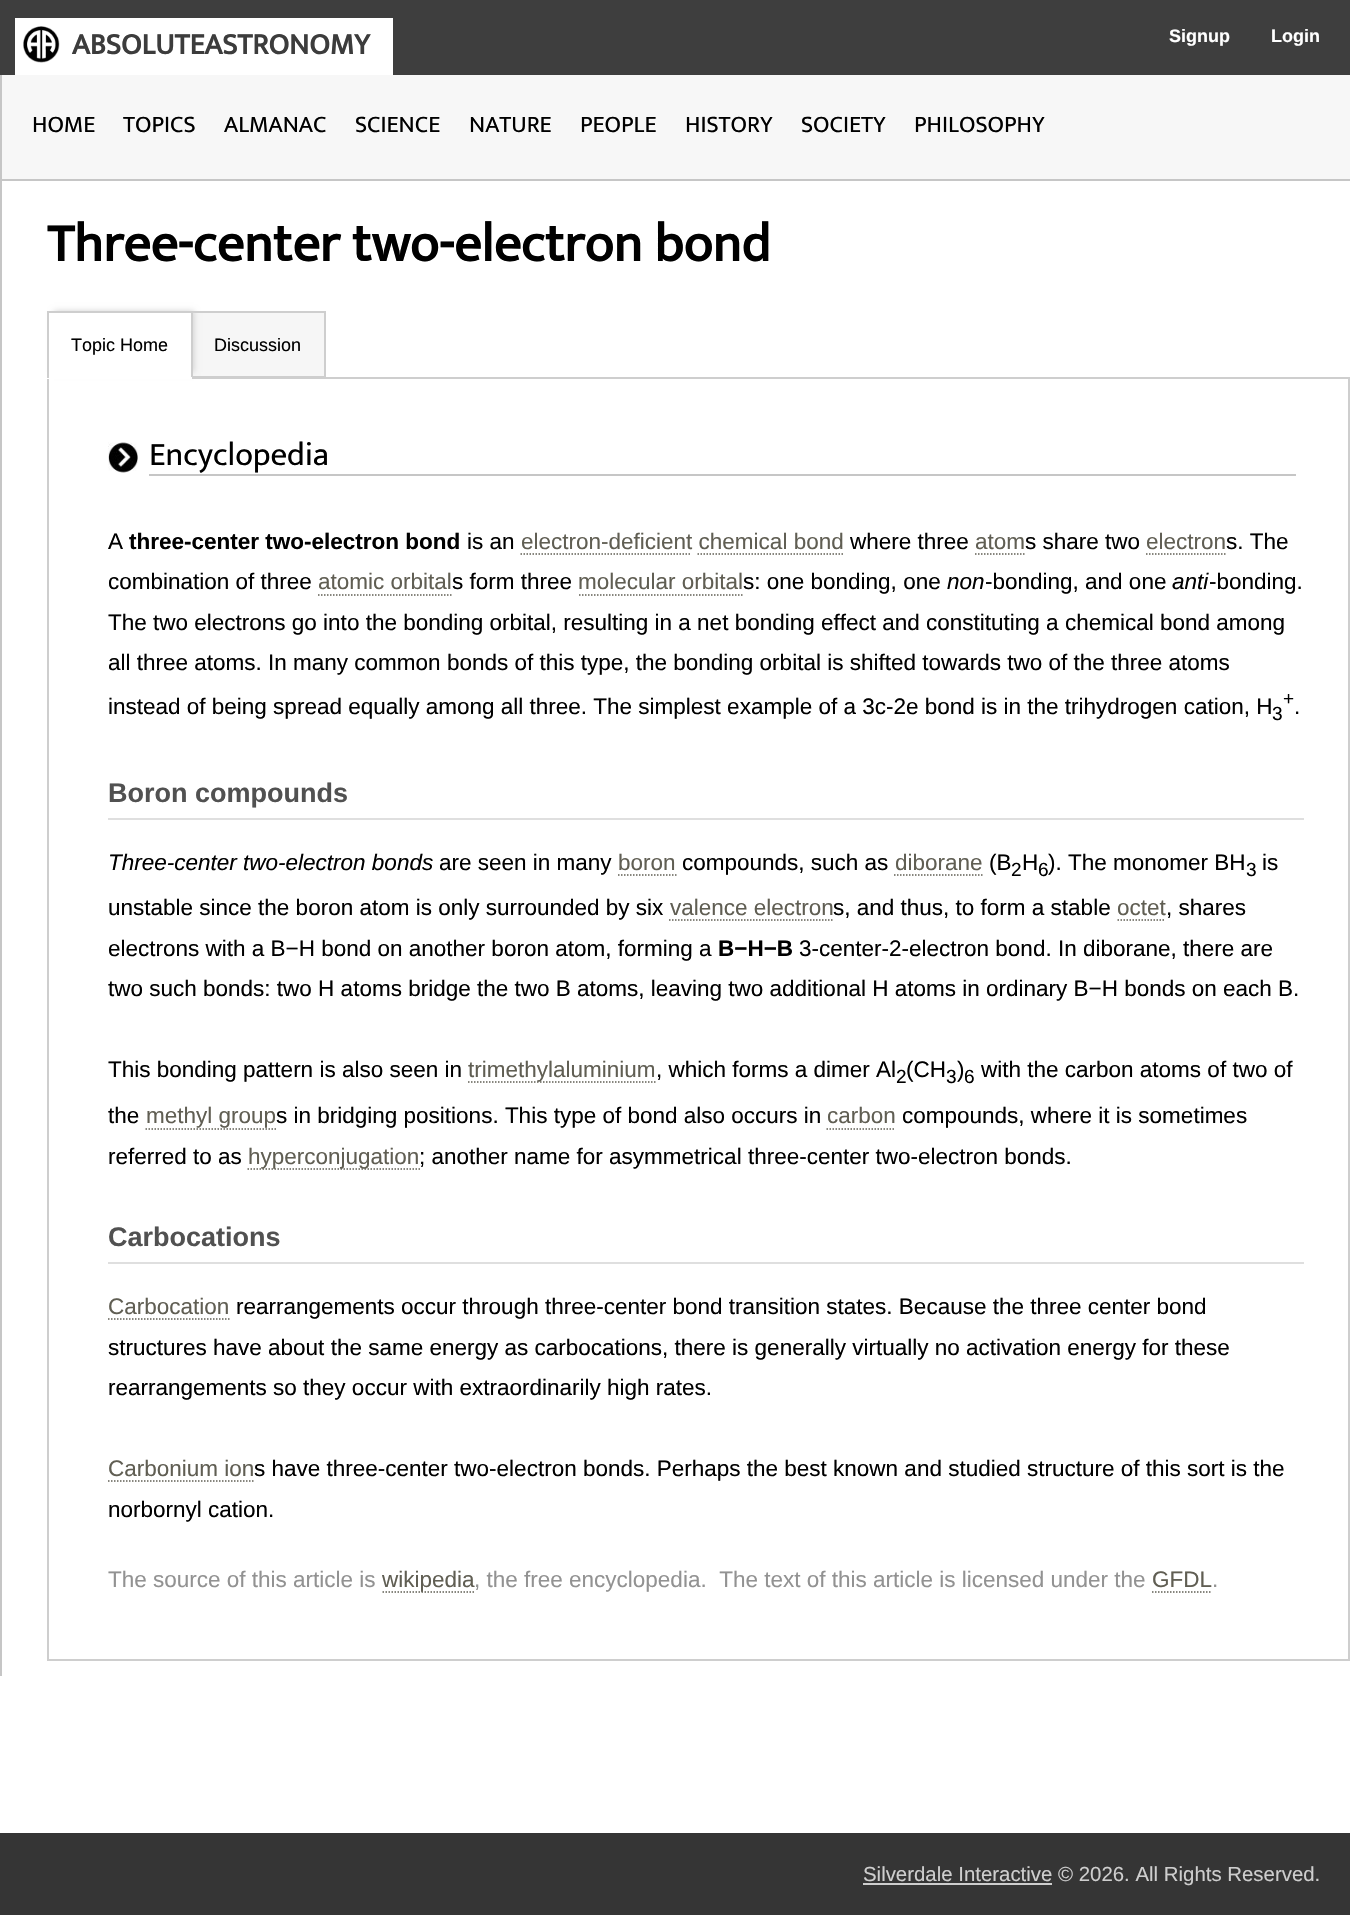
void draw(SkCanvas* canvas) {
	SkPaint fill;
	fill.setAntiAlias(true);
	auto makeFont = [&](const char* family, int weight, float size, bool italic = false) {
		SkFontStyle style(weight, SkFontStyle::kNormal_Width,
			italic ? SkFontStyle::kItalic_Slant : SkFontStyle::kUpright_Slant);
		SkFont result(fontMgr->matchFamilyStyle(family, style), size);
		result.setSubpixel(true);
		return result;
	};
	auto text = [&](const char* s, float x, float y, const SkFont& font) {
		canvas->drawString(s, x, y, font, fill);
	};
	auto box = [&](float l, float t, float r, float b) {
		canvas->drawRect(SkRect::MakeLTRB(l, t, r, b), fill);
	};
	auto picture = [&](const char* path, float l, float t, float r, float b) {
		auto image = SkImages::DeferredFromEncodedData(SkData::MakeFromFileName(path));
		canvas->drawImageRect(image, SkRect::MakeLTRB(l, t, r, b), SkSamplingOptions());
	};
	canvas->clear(0xFFFFFFFF);
	fill.setColor(0xFF3E3E3E);
	box(0, 0, 1350, 75);
	fill.setColor(0xFFFFFFFF);
	box(15, 18, 393, 75);
	picture("image0.png", 23, 26, 60, 63);
	fill.setColor(0xFFF7F7F7);
	box(2, 75, 1350, 179);
	fill.setColor(0xFFC6C6C6);
	box(0, 179, 1350, 181);
	box(0, 75, 2, 1676);
	fill.setColor(0xFFF6F6F6);
	box(193, 313, 324, 376);
	fill.setStyle(SkPaint::kStroke_Style);
	fill.setStrokeWidth(2);
	fill.setColor(0xFFCECECE);
	canvas->drawRect(SkRect::MakeLTRB(48, 378, 1349, 1660), fill);
	canvas->drawRect(SkRect::MakeLTRB(190, 312, 325, 377), fill);
	fill.setStyle(SkPaint::kFill_Style);
	fill.setColor(0xFFD1D1D1);
	fill.setMaskFilter(SkMaskFilter::MakeBlur(kNormal_SkBlurStyle, 3));
	canvas->drawRect(SkRect::MakeLTRB(54, 311, 194, 372), fill);
	fill.setMaskFilter(nullptr);
	fill.setColor(0xFFFFFFFF);
	box(49, 313, 191, 377);
	fill.setColor(0xFFCECECE);
	box(47, 311, 192, 313);
	box(191, 311, 193, 378);
	fill.setColor(0xFFFFFFFF);
	box(47, 377, 192, 379);
	fill.setColor(0xFFCECECE);
	box(47, 311, 49, 378);
	picture("image1.png", 108, 442, 138, 473);
	fill.setColor(0xFFC6C6C6);
	box(149, 474, 1296, 476);
	fill.setStyle(SkPaint::kStroke_Style);
	fill.setStrokeWidth(1.5f);
	fill.setColor(0xFF605E53);
	fill.setPathEffect(SkDashPathEffect::Make({{1.5f, 1.5f}}, 0));
	canvas->drawPath(SkPathBuilder().moveTo(520.5f, 554).lineTo(691.5f, 554).detach(), fill);
	fill.setPathEffect(nullptr);
	fill.setPathEffect(SkDashPathEffect::Make({{1.5f, 1.5f}}, 0));
	canvas->drawPath(SkPathBuilder().moveTo(975, 554).lineTo(1024.5f, 554).detach(), fill);
	fill.setPathEffect(nullptr);
	fill.setPathEffect(SkDashPathEffect::Make({{1.5f, 1.5f}}, 0));
	canvas->drawPath(SkPathBuilder().moveTo(1146, 554).lineTo(1225.5f, 554).detach(), fill);
	fill.setPathEffect(nullptr);
	fill.setPathEffect(SkDashPathEffect::Make({{1.5f, 1.5f}}, 0));
	canvas->drawPath(SkPathBuilder().moveTo(697.5f, 554).lineTo(843, 554).detach(), fill);
	fill.setPathEffect(nullptr);
	fill.setPathEffect(SkDashPathEffect::Make({{1.5f, 1.5f}}, 0));
	canvas->drawPath(SkPathBuilder().moveTo(318, 595).lineTo(451.5f, 595).detach(), fill);
	fill.setPathEffect(nullptr);
	fill.setPathEffect(SkDashPathEffect::Make({{1.5f, 1.5f}}, 0));
	canvas->drawPath(SkPathBuilder().moveTo(579, 595).lineTo(744, 595).detach(), fill);
	fill.setPathEffect(nullptr);
	fill.setStyle(SkPaint::kFill_Style);
	fill.setColor(0xFFDFDFDF);
	box(108, 818, 1304, 820);
	fill.setStyle(SkPaint::kStroke_Style);
	fill.setColor(0xFF605E53);
	fill.setPathEffect(SkDashPathEffect::Make({{1.5f, 1.5f}}, 0));
	canvas->drawPath(SkPathBuilder().moveTo(618, 875).lineTo(676.5f, 875).detach(), fill);
	fill.setPathEffect(nullptr);
	fill.setPathEffect(SkDashPathEffect::Make({{1.5f, 1.5f}}, 0));
	canvas->drawPath(SkPathBuilder().moveTo(894, 875).lineTo(982.5f, 875).detach(), fill);
	fill.setPathEffect(nullptr);
	fill.setPathEffect(SkDashPathEffect::Make({{1.5f, 1.5f}}, 0));
	canvas->drawPath(SkPathBuilder().moveTo(669, 920).lineTo(834, 920).detach(), fill);
	fill.setPathEffect(nullptr);
	fill.setPathEffect(SkDashPathEffect::Make({{1.5f, 1.5f}}, 0));
	canvas->drawPath(SkPathBuilder().moveTo(1117.5f, 920).lineTo(1165.5f, 920).detach(), fill);
	fill.setPathEffect(nullptr);
	fill.setPathEffect(SkDashPathEffect::Make({{1.5f, 1.5f}}, 0));
	canvas->drawPath(SkPathBuilder().moveTo(468, 1082).lineTo(655.5f, 1082).detach(), fill);
	fill.setPathEffect(nullptr);
	fill.setPathEffect(SkDashPathEffect::Make({{1.5f, 1.5f}}, 0));
	canvas->drawPath(SkPathBuilder().moveTo(145.5f, 1129).lineTo(276, 1129).detach(), fill);
	fill.setPathEffect(nullptr);
	fill.setPathEffect(SkDashPathEffect::Make({{1.5f, 1.5f}}, 0));
	canvas->drawPath(SkPathBuilder().moveTo(826.5f, 1129).lineTo(895.5f, 1129).detach(), fill);
	fill.setPathEffect(nullptr);
	fill.setPathEffect(SkDashPathEffect::Make({{1.5f, 1.5f}}, 0));
	canvas->drawPath(SkPathBuilder().moveTo(247.5f, 1169).lineTo(420, 1169).detach(), fill);
	fill.setPathEffect(nullptr);
	fill.setStyle(SkPaint::kFill_Style);
	fill.setColor(0xFFDFDFDF);
	box(108, 1262, 1304, 1264);
	fill.setStyle(SkPaint::kStroke_Style);
	fill.setColor(0xFF605E53);
	fill.setPathEffect(SkDashPathEffect::Make({{1.5f, 1.5f}}, 0));
	canvas->drawPath(SkPathBuilder().moveTo(108, 1319).lineTo(229.5f, 1319).detach(), fill);
	fill.setPathEffect(nullptr);
	fill.setPathEffect(SkDashPathEffect::Make({{1.5f, 1.5f}}, 0));
	canvas->drawPath(SkPathBuilder().moveTo(108, 1481).lineTo(255, 1481).detach(), fill);
	fill.setPathEffect(nullptr);
	fill.setPathEffect(SkDashPathEffect::Make({{1.5f, 1.5f}}, 0));
	canvas->drawPath(SkPathBuilder().moveTo(382.5f, 1592).lineTo(474, 1592).detach(), fill);
	fill.setPathEffect(nullptr);
	fill.setPathEffect(SkDashPathEffect::Make({{1.5f, 1.5f}}, 0));
	canvas->drawPath(SkPathBuilder().moveTo(1152, 1592).lineTo(1212, 1592).detach(), fill);
	fill.setPathEffect(nullptr);
	fill.setStyle(SkPaint::kFill_Style);
	fill.setColor(0xFF353535);
	box(0, 1833, 1350, 1915);
	fill.setColor(0xFFCECECE);
	box(863, 1883, 1052, 1885);
	auto font1 = makeFont("Mukta", 700, 30);
	fill.setColor(0xFF3C3C3C);
	text("ABSOLUTEASTRONOMY", 72, 54, font1);
	auto font2 = makeFont("Liberation Sans", 700, 18);
	fill.setColor(0xFFFFFFFF);
	text("Signup", 1169, 42, font2);
	text("Login", 1271, 42, font2);
	auto font3 = makeFont("Mukta", 400, 24);
	fill.setColor(0xFF000000);
	text("HOME", 32, 132, font3);
	text("TOPICS", 123, 132, font3);
	text("ALMANAC", 224, 132, font3);
	text("SCIENCE", 355, 132, font3);
	text("NATURE", 469, 132, font3);
	text("PEOPLE", 580, 132, font3);
	text("HISTORY", 685, 132, font3);
	text("SOCIETY", 801, 132, font3);
	text("PHILOSOPHY", 914, 132, font3);
	auto font4 = makeFont("Mukta", 700, 54);
	text("Three-center two-electron bond", 47, 261, font4);
	auto font5 = makeFont("Liberation Sans", 400, 18);
	text("Topic Home", 71, 351, font5);
	text("Discussion", 214, 351, font5);
	auto font6 = makeFont("Mukta", 400, 33);
	text("Encyclopedia", 149, 465, font6);
	auto font7 = makeFont("Liberation Sans", 400, 22.5f);
	text("A", 108, 549, font7);
	auto font8 = makeFont("Liberation Sans", 700, 22.5f);
	text("three-center two-electron bond", 129, 549, font8);
	text("is an", 467, 549, font7);
	fill.setColor(0xFF605E53);
	text("electron-deficient chemical bond", 521, 549, font7);
	fill.setColor(0xFF000000);
	text("where three", 850, 549, font7);
	fill.setColor(0xFF605E53);
	text("atom", 975, 549, font7);
	fill.setColor(0xFF000000);
	text("s share two", 1025, 549, font7);
	fill.setColor(0xFF605E53);
	text("electron", 1146, 549, font7);
	fill.setColor(0xFF000000);
	text("s. The", 1226, 549, font7);
	text("combination of three", 108, 589, font7);
	fill.setColor(0xFF605E53);
	text("atomic orbital", 318, 589, font7);
	fill.setColor(0xFF000000);
	text("s form three", 452, 589, font7);
	fill.setColor(0xFF605E53);
	text("molecular orbital", 578, 589, font7);
	fill.setColor(0xFF000000);
	text("s: one bonding, one", 743, 589, font7);
	auto font9 = makeFont("Liberation Sans", 400, 22.5f, true);
	text("non", 947, 589, font9);
	text("-bonding, and one", 985, 589, font7);
	text("anti", 1172, 589, font9);
	text("-bonding.", 1209, 589, font7);
	text("The two electrons go into the bonding orbital, resulting in a net bonding effect and constituting a chemical bond among", 108, 630, font7);
	text("all three atoms. In many common bonds of this type, the bonding orbital is shifted towards two of the three atoms", 108, 670, font7);
	text("instead of being spread equally among all three. The simplest example of a 3c-2e bond is in the trihydrogen cation, H", 108, 714, font7);
	auto font10 = makeFont("Liberation Sans", 400, 19);
	text("3", 1272, 720, font10);
	text("+", 1283, 705, font10);
	text(".", 1294, 714, font7);
	auto font11 = makeFont("Liberation Sans", 700, 27);
	fill.setColor(0xFF515151);
	text("Boron compounds", 108, 802, font11);
	fill.setColor(0xFF000000);
	text("Three-center two-electron bonds", 108, 870, font9);
	text("are seen in many", 439, 870, font7);
	fill.setColor(0xFF605E53);
	text("boron", 618, 870, font7);
	fill.setColor(0xFF000000);
	text("compounds, such as", 682, 870, font7);
	fill.setColor(0xFF605E53);
	text("diborane", 895, 870, font7);
	fill.setColor(0xFF000000);
	text("(B", 989, 870, font7);
	text("2", 1011, 876, font10);
	text("H", 1022, 870, font7);
	text("6", 1038, 876, font10);
	text("). The monomer BH", 1048, 870, font7);
	text("3", 1246, 876, font10);
	text("is", 1262, 870, font7);
	text("unstable since the boron atom is only surrounded by six", 108, 915, font7);
	fill.setColor(0xFF605E53);
	text("valence electron", 670, 915, font7);
	fill.setColor(0xFF000000);
	text("s, and thus, to form a stable", 833, 915, font7);
	fill.setColor(0xFF605E53);
	text("octet", 1117, 915, font7);
	fill.setColor(0xFF000000);
	text(", shares", 1166, 915, font7);
	text("electrons with a B−H bond on another boron atom, forming a", 108, 956, font7);
	text("B−H−B", 718, 956, font8);
	text("3-center-2-electron bond. In diborane, there are", 799, 956, font7);
	text("two such bonds: two H atoms bridge the two B atoms, leaving two additional H atoms in ordinary B−H bonds on each B.", 108, 996, font7);
	text("This bonding pattern is also seen in", 108, 1077, font7);
	fill.setColor(0xFF605E53);
	text("trimethylaluminium", 468, 1077, font7);
	fill.setColor(0xFF000000);
	text(", which forms a dimer Al", 656, 1077, font7);
	text("2", 896, 1083, font10);
	text("(CH", 906, 1077, font7);
	text("3", 946, 1083, font10);
	text(")", 957, 1077, font7);
	text("6", 964, 1083, font10);
	text("with the carbon atoms of two of", 981, 1077, font7);
	text("the", 108, 1123, font7);
	fill.setColor(0xFF605E53);
	text("methyl group", 146, 1123, font7);
	fill.setColor(0xFF000000);
	text("s in bridging positions. This type of bond also occurs in", 276, 1123, font7);
	fill.setColor(0xFF605E53);
	text("carbon", 827, 1123, font7);
	fill.setColor(0xFF000000);
	text("compounds, where it is sometimes", 902, 1123, font7);
	text("referred to as", 108, 1164, font7);
	fill.setColor(0xFF605E53);
	text("hyperconjugation", 248, 1164, font7);
	fill.setColor(0xFF000000);
	text("; another name for asymmetrical three-center two-electron bonds.", 419, 1164, font7);
	fill.setColor(0xFF515151);
	text("Carbocations", 108, 1246, font11);
	fill.setColor(0xFF605E53);
	text("Carbocation", 108, 1314, font7);
	fill.setColor(0xFF000000);
	text("rearrangements occur through three-center bond transition states. Because the three center bond", 236, 1314, font7);
	text("structures have about the same energy as carbocations, there is generally virtually no activation energy for these", 108, 1355, font7);
	text("rearrangements so they occur with extraordinarily high rates.", 108, 1395, font7);
	fill.setColor(0xFF605E53);
	text("Carbonium ion", 108, 1476, font7);
	fill.setColor(0xFF000000);
	text("s have three-center two-electron bonds. Perhaps the best known and studied structure of this sort is the", 254, 1476, font7);
	text("norbornyl cation.", 108, 1517, font7);
	fill.setColor(0xFF929292);
	text("The source of this article is", 108, 1587, font7);
	fill.setColor(0xFF605E53);
	text("wikipedia", 382, 1587, font7);
	fill.setColor(0xFF929292);
	text(", the free encyclopedia.  The text of this article is licensed under the", 474, 1587, font7);
	fill.setColor(0xFF605E53);
	text("GFDL", 1152, 1587, font7);
	fill.setColor(0xFF929292);
	text(".", 1212, 1587, font7);
	auto font12 = makeFont("Liberation Sans", 400, 20.4f);
	fill.setColor(0xFFCECECE);
	text("Silverdale Interactive © 2026. All Rights Reserved.", 863, 1881, font12);
}
